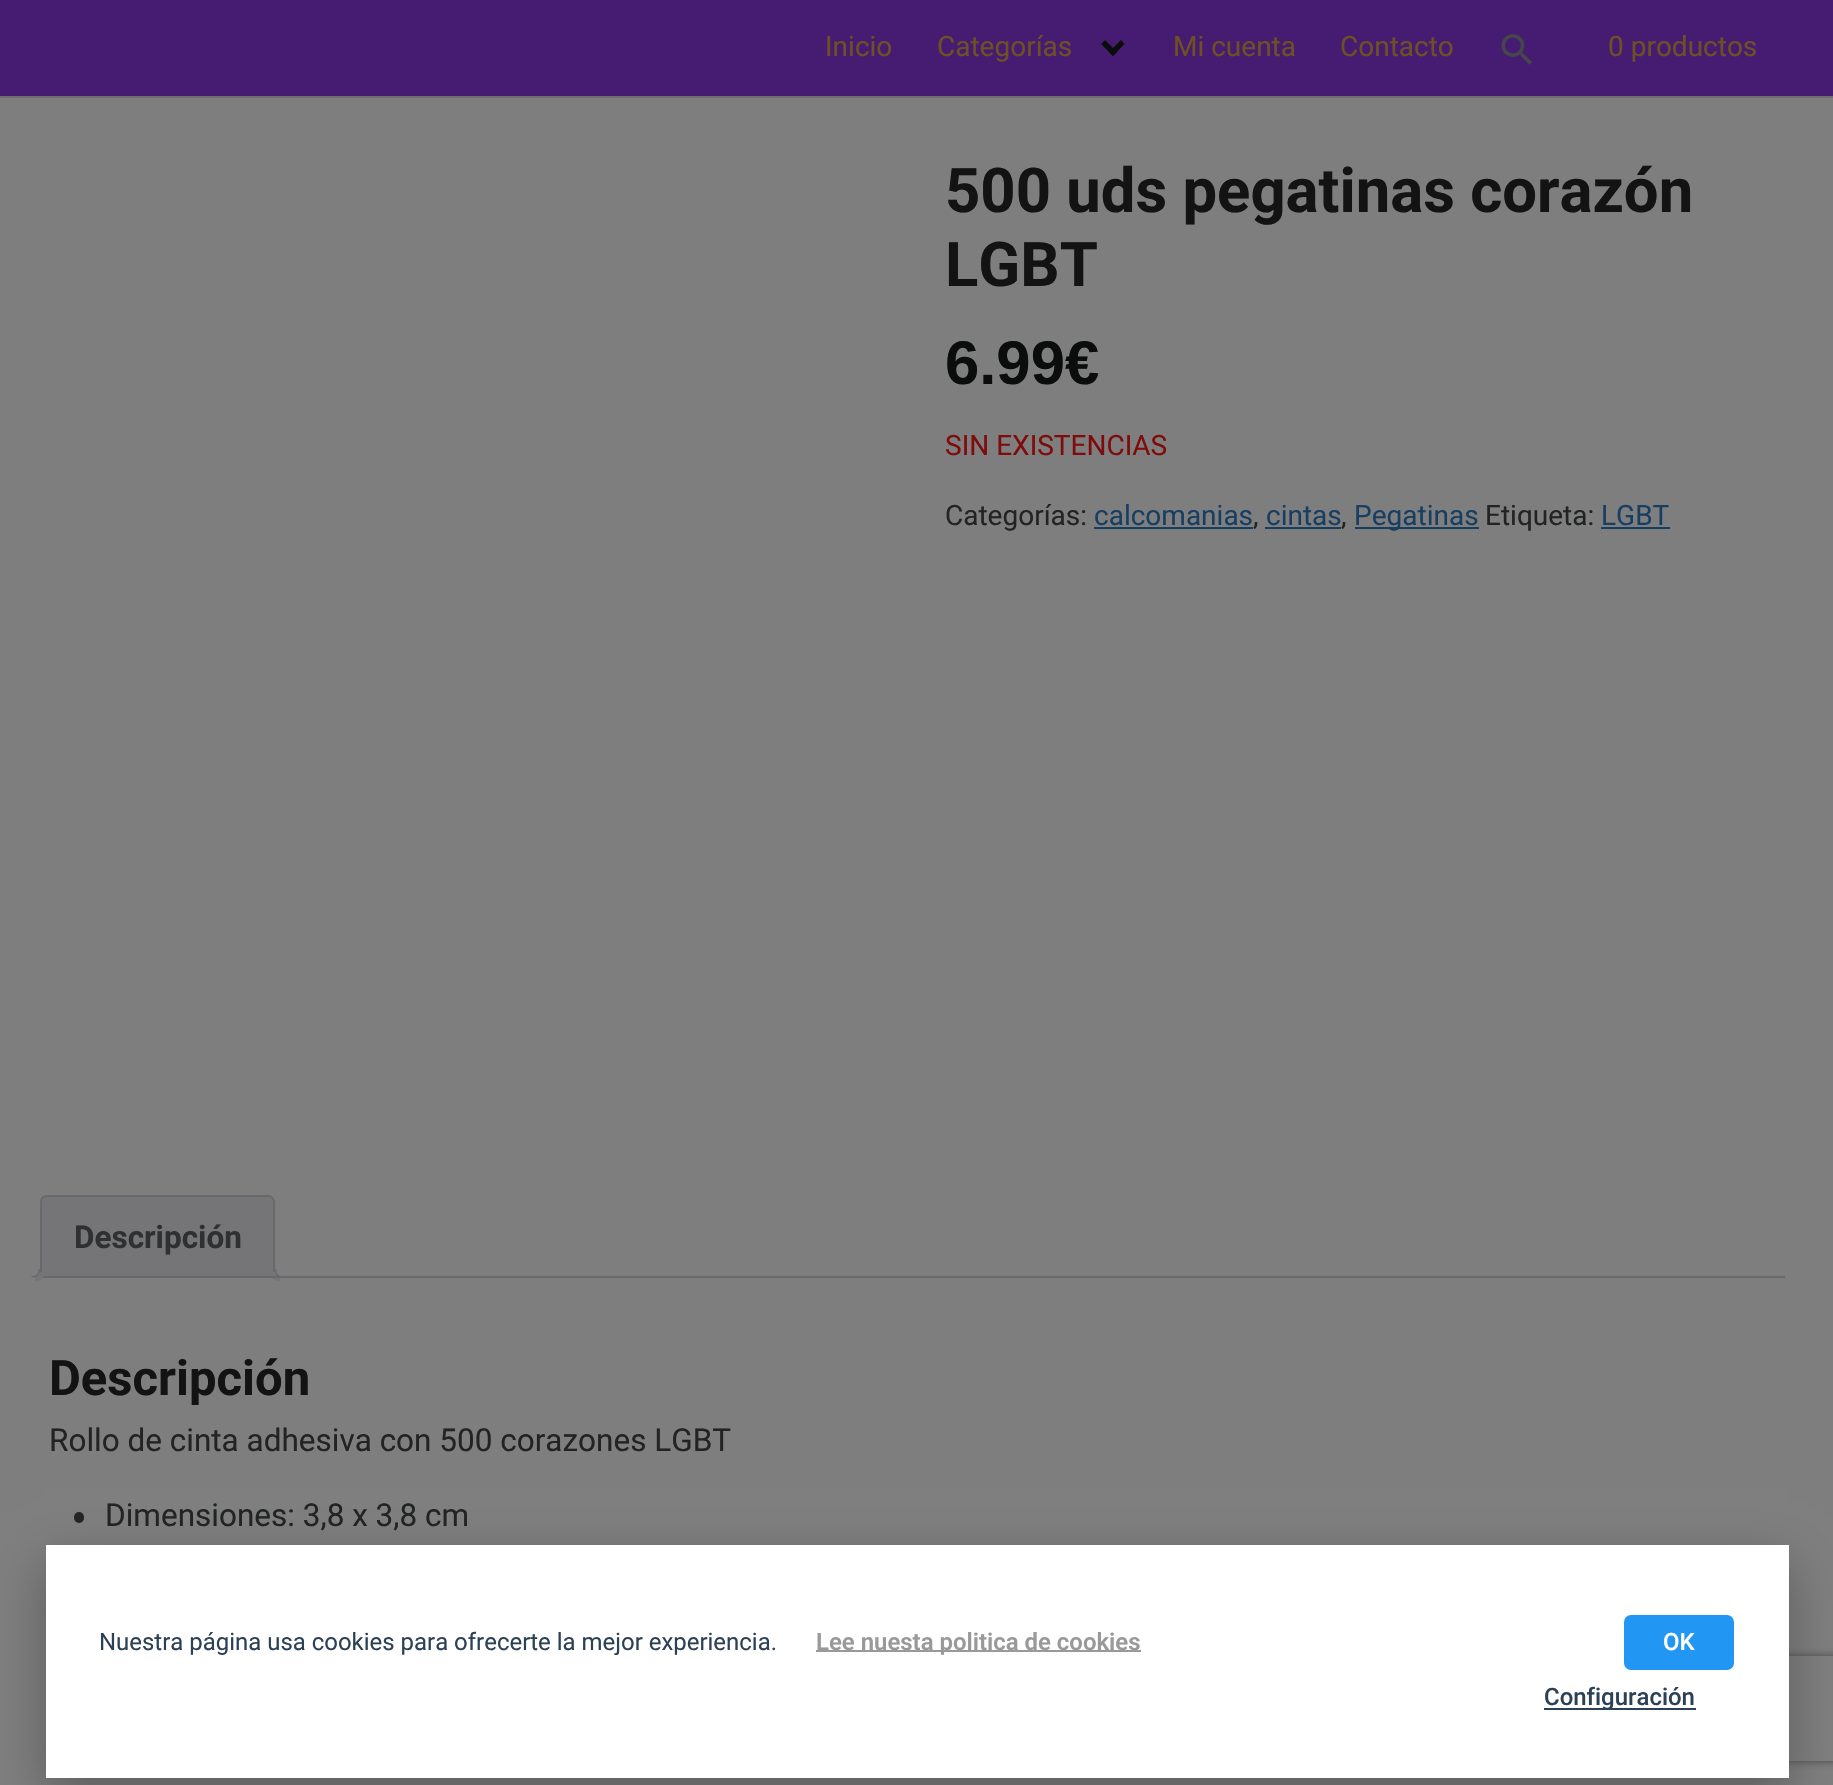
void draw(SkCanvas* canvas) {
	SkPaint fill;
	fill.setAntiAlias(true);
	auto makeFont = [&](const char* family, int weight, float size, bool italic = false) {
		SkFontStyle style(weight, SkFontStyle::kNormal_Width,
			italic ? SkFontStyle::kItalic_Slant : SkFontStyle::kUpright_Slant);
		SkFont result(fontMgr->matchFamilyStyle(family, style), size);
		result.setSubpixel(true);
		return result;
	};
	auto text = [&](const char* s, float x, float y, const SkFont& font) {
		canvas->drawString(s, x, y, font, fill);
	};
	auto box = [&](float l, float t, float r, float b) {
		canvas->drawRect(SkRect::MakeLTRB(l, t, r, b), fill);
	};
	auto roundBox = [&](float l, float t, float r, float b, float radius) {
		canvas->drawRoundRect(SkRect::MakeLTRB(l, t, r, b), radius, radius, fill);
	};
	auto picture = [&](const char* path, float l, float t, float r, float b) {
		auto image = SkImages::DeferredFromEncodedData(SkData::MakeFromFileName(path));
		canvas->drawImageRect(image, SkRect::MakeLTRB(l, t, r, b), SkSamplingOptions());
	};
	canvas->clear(0xFF7E7E7F);
	fill.setColor(0xFF461C72);
	box(0, 0, 1833, 96);
	fill.setColor(0xFF6E6E6F);
	box(0, 96, 1833, 98);
	fill.setColor(0xFF0B0C0C);
	canvas->drawPath(SkPathBuilder().moveTo(1101, 44).lineTo(1105, 40).lineTo(1117, 52).lineTo(1113, 56).close().detach(), fill);
	canvas->drawPath(SkPathBuilder().moveTo(1109, 52).lineTo(1121, 40).lineTo(1124.5f, 44).lineTo(1113, 56).close().detach(), fill);
	picture("image0.png", 1501, 34, 1532, 65);
	fill.setColor(0xFF183F62);
	box(1094, 527, 1253, 529);
	box(1265, 527, 1341, 529);
	box(1355, 527, 1479, 529);
	box(1601, 527, 1670, 529);
	fill.setColor(0xFF757476);
	canvas->drawPath(SkPathBuilder().moveTo(47, 1196).lineTo(268, 1196).cubicTo(271.5f, 1196, 274, 1198.5f, 274, 1202).lineTo(274, 1277).lineTo(41, 1277).lineTo(41, 1202).cubicTo(41, 1198.5f, 43.5f, 1196, 47, 1196).close().detach(), fill);
	fill.setStyle(SkPaint::kStroke_Style);
	fill.setStrokeWidth(2);
	fill.setColor(0xFF6A686B);
	canvas->drawPath(SkPathBuilder().moveTo(47, 1196).lineTo(268, 1196).cubicTo(271.5f, 1196, 274, 1198.5f, 274, 1202).lineTo(274, 1277).lineTo(41, 1277).lineTo(41, 1202).cubicTo(41, 1198.5f, 43.5f, 1196, 47, 1196).close().detach(), fill);
	fill.setStyle(SkPaint::kFill_Style);
	fill.setColor(0xFF757476);
	canvas->drawPath(SkPathBuilder().moveTo(35, 1277.5f).lineTo(35, 1281).cubicTo(41.5f, 1281, 44, 1278.5f, 44, 1272).lineTo(40, 1272).cubicTo(39.5f, 1274.5f, 37.5f, 1276.5f, 35, 1277.5f).close().detach(), fill);
	fill.setColor(0xFF6A686B);
	canvas->drawPath(SkPathBuilder(SkPathFillType::kEvenOdd).moveTo(31.5f, 1269).lineTo(40, 1269).cubicTo(40, 1275, 37.5f, 1277.5f, 31.5f, 1277.5f).close().moveTo(31.5f, 1269).lineTo(38.5f, 1269).cubicTo(38.5f, 1274, 36.5f, 1276, 31.5f, 1276).close().detach(), fill);
	fill.setColor(0xFF757476);
	canvas->drawPath(SkPathBuilder().moveTo(271, 1272).cubicTo(271, 1278.5f, 273.5f, 1281, 280, 1281).lineTo(280, 1277.5f).cubicTo(277.5f, 1276.5f, 275.5f, 1274.5f, 275, 1272).close().detach(), fill);
	fill.setColor(0xFF6A686B);
	canvas->drawPath(SkPathBuilder(SkPathFillType::kEvenOdd).moveTo(275, 1269).lineTo(283.5f, 1269).lineTo(283.5f, 1277.5f).cubicTo(279, 1277.5f, 275, 1276, 275, 1270.5f).close().moveTo(276.5f, 1269).lineTo(283.5f, 1269).lineTo(283.5f, 1276).cubicTo(280, 1276, 276.5f, 1275, 276.5f, 1270.5f).close().detach(), fill);
	box(271, 1276, 1785, 1278);
	fill.setColor(0xFF222323);
	roundBox(74, 1512, 84, 1523, 5);
	fill.setColor(0x47020203);
	fill.setMaskFilter(SkMaskFilter::MakeBlur(kNormal_SkBlurStyle, 25));
	canvas->drawRect(SkRect::MakeLTRB(46, 1563, 1789, 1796), fill);
	fill.setMaskFilter(nullptr);
	canvas->save();
	canvas->clipPath(SkPathBuilder(SkPathFillType::kEvenOdd).moveTo(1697, 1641).lineTo(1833, 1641).lineTo(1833, 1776).lineTo(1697, 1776).close().moveTo(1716, 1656).lineTo(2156, 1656).cubicTo(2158, 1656, 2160, 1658, 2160, 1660).lineTo(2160, 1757).cubicTo(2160, 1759, 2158, 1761, 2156, 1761).lineTo(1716, 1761).cubicTo(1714, 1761, 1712, 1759, 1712, 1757).lineTo(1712, 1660).cubicTo(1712, 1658, 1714, 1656, 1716, 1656).close().detach(), true);
	fill.setColor(0xFF454546);
	fill.setMaskFilter(SkMaskFilter::MakeBlur(kNormal_SkBlurStyle, 4.5f));
	canvas->drawRoundRect(SkRect::MakeLTRB(1712, 1656, 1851, 1761), 4, 4, fill);
	fill.setMaskFilter(nullptr);
	canvas->restore();
	fill.setColor(0xFFFFFFFF);
	box(46, 1545, 1789, 1778);
	fill.setColor(0xFF999999);
	box(816, 1650, 1141, 1652);
	fill.setColor(0xFF2196F3);
	roundBox(1624, 1615, 1734, 1670, 7);
	fill.setColor(0xFF2D4156);
	box(1544, 1708, 1696, 1710);
	auto font1 = makeFont("Roboto", 400, 28);
	fill.setColor(0xFF6E5023);
	text("Inicio", 825, 56, font1);
	text("Categorías", 937, 56, font1);
	text("Mi cuenta", 1173, 56, font1);
	text("Contacto", 1340, 56, font1);
	text("0 productos", 1608, 56, font1);
	auto font2 = makeFont("Roboto", 700, 61.6f);
	fill.setColor(0xFF131314);
	text("500 uds pegatinas corazón", 945, 212, font2);
	text("LGBT", 945, 286, font2);
	auto font3 = makeFont("Liberation Sans", 700, 61.6f);
	fill.setColor(0xFF0B0C0C);
	text("6.99€", 945, 384, font3);
	fill.setColor(0xFF7E0C0C);
	text("SIN EXISTENCIAS", 945, 455, font1);
	fill.setColor(0xFF222323);
	text("Categorías:", 945, 525, font1);
	fill.setColor(0xFF183F62);
	text("calcomanias", 1094, 525, font1);
	fill.setColor(0xFF222323);
	text(",", 1253, 525, font1);
	fill.setColor(0xFF183F62);
	text("cintas", 1266, 525, font1);
	fill.setColor(0xFF222323);
	text(",", 1341, 525, font1);
	fill.setColor(0xFF183F62);
	text("Pegatinas", 1354, 525, font1);
	fill.setColor(0xFF222323);
	text("Etiqueta:", 1485, 525, font1);
	fill.setColor(0xFF183F62);
	text("LGBT", 1601, 525, font1);
	auto font4 = makeFont("Roboto", 700, 31.5f);
	fill.setColor(0xFF2F3031);
	text("Descripción", 74, 1248, font4);
	auto font5 = makeFont("Roboto", 700, 49);
	fill.setColor(0xFF131314);
	text("Descripción", 49, 1395, font5);
	auto font6 = makeFont("Roboto", 400, 31.5f);
	fill.setColor(0xFF222323);
	text("Rollo de cinta adhesiva con 500 corazones LGBT", 49, 1451, font6);
	text("Dimensiones: 3,8 x 3,8 cm", 105, 1526, font6);
	auto font7 = makeFont("Roboto", 400, 23.95f);
	fill.setColor(0xFF2D4156);
	text("Nuestra página usa cookies para ofrecerte la mejor experiencia.", 99, 1650, font7);
	auto font8 = makeFont("Roboto", 600, 23.95f);
	fill.setColor(0xFF999999);
	text("Lee nuesta politica de cookies", 816, 1650, font8);
	auto font9 = makeFont("Roboto", 500, 23.95f);
	fill.setColor(0xFFFFFFFF);
	text("OK", 1663, 1650, font9);
	fill.setColor(0xFF2D4156);
	text("Configuración", 1544, 1705, font9);
}
